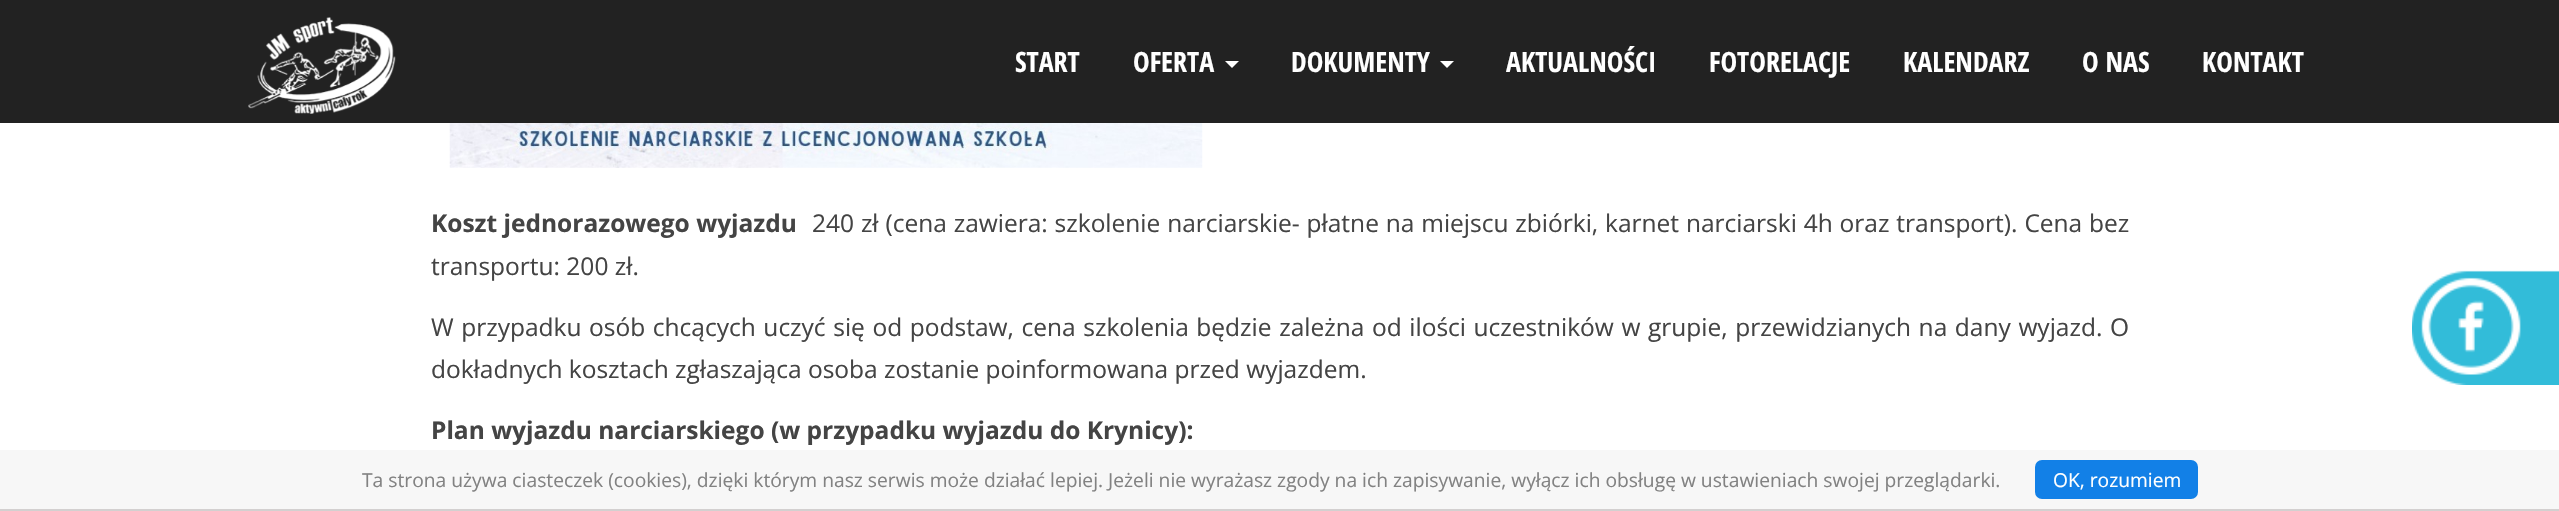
void draw(SkCanvas* canvas) {
	SkPaint fill;
	fill.setAntiAlias(true);
	auto makeFont = [&](const char* family, int weight, float size, bool italic = false) {
		SkFontStyle style(weight, SkFontStyle::kNormal_Width,
			italic ? SkFontStyle::kItalic_Slant : SkFontStyle::kUpright_Slant);
		SkFont result(fontMgr->matchFamilyStyle(family, style), size);
		result.setSubpixel(true);
		return result;
	};
	auto text = [&](const char* s, float x, float y, const SkFont& font) {
		canvas->drawString(s, x, y, font, fill);
	};
	auto spacedText = [&](const char* s, float x, float y, const SkFont& font, const SkPaint& ink, float letter, float word) {
		std::vector<SkGlyphID> glyphs(font.countText(s, strlen(s), SkTextEncoding::kUTF8));
		std::vector<float> xs(glyphs.size());
		font.textToGlyphs(s, strlen(s), SkTextEncoding::kUTF8, glyphs);
		font.getXPos(glyphs, xs, x);
		float extra = 0;
		for (size_t i = 0; i < glyphs.size(); i++) {
			xs[i] += extra;
			extra += letter + word * (glyphs[i] == font.unicharToGlyph(' '));
		}
		canvas->drawTextBlob(SkTextBlob::MakeFromPosHGlyphs(glyphs, xs, y, font), 0, 0, ink);
	};
	auto box = [&](float l, float t, float r, float b) {
		canvas->drawRect(SkRect::MakeLTRB(l, t, r, b), fill);
	};
	auto roundBox = [&](float l, float t, float r, float b, float radius) {
		canvas->drawRoundRect(SkRect::MakeLTRB(l, t, r, b), radius, radius, fill);
	};
	auto picture = [&](const char* path, float l, float t, float r, float b) {
		auto image = SkImages::DeferredFromEncodedData(SkData::MakeFromFileName(path));
		canvas->drawImageRect(image, SkRect::MakeLTRB(l, t, r, b), SkSamplingOptions());
	};
	canvas->clear(0xFFFFFFFF);
	fill.setColor(0xFF222222);
	box(0, 0, 2559, 123);
	picture("image0.png", 248, 17, 396, 114);
	fill.setColor(0xFFFFFFFF);
	canvas->drawPath(SkPathBuilder().moveTo(1225, 61).lineTo(1239, 61).lineTo(1232, 68).close().detach(), fill);
	canvas->drawPath(SkPathBuilder().moveTo(1440, 61).lineTo(1454, 61).lineTo(1447, 68).close().detach(), fill);
	picture("image1.png", 449, 123, 1203, 168);
	picture("image2.png", 2412, 270, 2559, 385);
	fill.setColor(0xFFF7F7F7);
	box(0, 450, 2559, 509);
	fill.setColor(0xFFD3D0D0);
	box(0, 509, 2559, 511);
	fill.setColor(0xFF1280E7);
	roundBox(2035, 460, 2198, 499, 7);
	auto font1 = makeFont("Open Sans Condensed", 700, 28);
	fill.setColor(0xFFFFFFFF);
	text("START", 1015, 72, font1);
	text("OFERTA", 1133, 72, font1);
	text("DOKUMENTY", 1291, 72, font1);
	text("AKTUALNOŚCI", 1506, 72, font1);
	text("FOTORELACJE", 1709, 72, font1);
	text("KALENDARZ", 1903, 72, font1);
	text("O NAS", 2082, 72, font1);
	text("KONTAKT", 2202, 72, font1);
	auto font2 = makeFont("Open Sans", 700, 24.5f);
	fill.setColor(0xFF444444);
	text("Koszt jednorazowego wyjazdu", 431, 232, font2);
	auto font3 = makeFont("Open Sans", 400, 24.5f);
	spacedText("240 zł (cena zawiera: szkolenie narciarskie- płatne na miejscu zbiórki, karnet narciarski 4h oraz transport). Cena bez", 812, 232, font3, fill, 0, 0.5f);
	text("transportu: 200 zł.", 431, 275, font3);
	spacedText("W przypadku osób chcących uczyć się od podstaw, cena szkolenia będzie zależna od ilości uczestników w grupie, przewidzianych na dany wyjazd. O", 431, 336, font3, fill, 0, 1.25f);
	text("dokładnych kosztach zgłaszająca osoba zostanie poinformowana przed wyjazdem.", 431, 378, font3);
	text("Plan wyjazdu narciarskiego (w przypadku wyjazdu do Krynicy):", 431, 439, font2);
	auto font4 = makeFont("Open Sans", 400, 19.25f);
	fill.setColor(0xFF828282);
	text("Ta strona używa ciasteczek (cookies), dzięki którym nasz serwis może działać lepiej. Jeżeli nie wyrażasz zgody na ich zapisywanie, wyłącz ich obsługę w ustawieniach swojej przeglądarki.", 362, 487, font4);
	fill.setColor(0xFFFFFFFF);
	text("OK, rozumiem", 2053, 487, font4);
}
